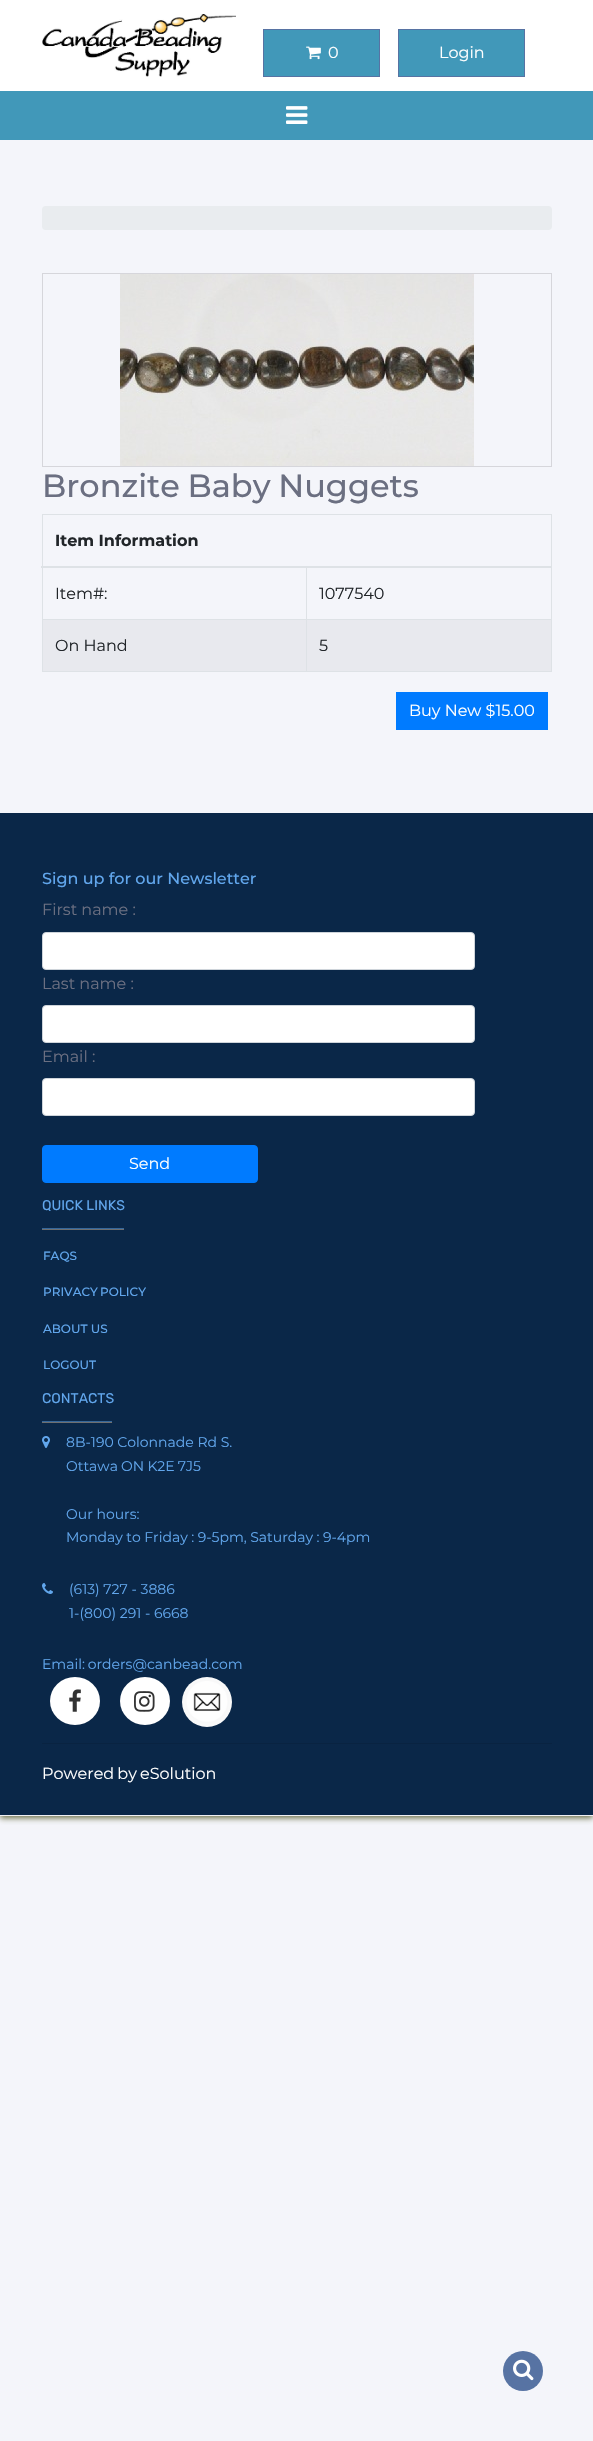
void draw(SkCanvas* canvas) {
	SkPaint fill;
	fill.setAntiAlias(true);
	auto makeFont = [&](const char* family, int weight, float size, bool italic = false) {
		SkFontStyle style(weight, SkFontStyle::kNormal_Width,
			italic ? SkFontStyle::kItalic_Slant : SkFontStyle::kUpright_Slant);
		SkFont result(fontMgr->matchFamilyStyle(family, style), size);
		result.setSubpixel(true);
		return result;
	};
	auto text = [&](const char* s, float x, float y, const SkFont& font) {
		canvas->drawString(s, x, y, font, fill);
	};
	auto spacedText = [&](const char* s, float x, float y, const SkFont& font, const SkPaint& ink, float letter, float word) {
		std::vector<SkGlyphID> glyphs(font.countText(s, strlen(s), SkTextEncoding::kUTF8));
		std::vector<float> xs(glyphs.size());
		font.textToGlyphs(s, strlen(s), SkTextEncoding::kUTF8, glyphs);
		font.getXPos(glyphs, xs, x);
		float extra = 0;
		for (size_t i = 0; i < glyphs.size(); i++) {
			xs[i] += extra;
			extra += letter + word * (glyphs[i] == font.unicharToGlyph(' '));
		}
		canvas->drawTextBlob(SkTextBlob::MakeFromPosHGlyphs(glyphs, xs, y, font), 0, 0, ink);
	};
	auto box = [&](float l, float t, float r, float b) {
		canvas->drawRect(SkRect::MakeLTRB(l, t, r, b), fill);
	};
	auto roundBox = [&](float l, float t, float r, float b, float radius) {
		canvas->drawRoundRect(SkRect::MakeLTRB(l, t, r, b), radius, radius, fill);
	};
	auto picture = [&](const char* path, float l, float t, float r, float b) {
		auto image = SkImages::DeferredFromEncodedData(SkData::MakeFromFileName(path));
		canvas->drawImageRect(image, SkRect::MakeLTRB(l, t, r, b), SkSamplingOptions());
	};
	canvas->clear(0xFFF4F5FA);
	fill.setColor(0xCC454913);
	fill.setMaskFilter(SkMaskFilter::MakeBlur(kNormal_SkBlurStyle, 3));
	canvas->drawRect(SkRect::MakeLTRB(0, 2, 593, 1818), fill);
	fill.setMaskFilter(nullptr);
	fill.setColor(0xFFFFFFFF);
	box(0, 0, 593, 91);
	fill.setColor(0xFFEFF0F5);
	box(0, 1815, 593, 1816);
	picture("image0.png", 42, 14, 236, 77);
	fill.setColor(0xFF4198B9);
	canvas->drawRect(SkRect::MakeLTRB(263.5f, 29.5f, 379.5f, 76.5f), fill);
	fill.setStyle(SkPaint::kStroke_Style);
	fill.setStrokeWidth(1);
	fill.setColor(0xFF5773A3);
	canvas->drawRect(SkRect::MakeLTRB(263.5f, 29.5f, 379.5f, 76.5f), fill);
	picture("image1.png", 306, 46, 321, 60);
	fill.setStyle(SkPaint::kFill_Style);
	fill.setColor(0xFF4198B9);
	canvas->drawRect(SkRect::MakeLTRB(398.5f, 29.5f, 524.5f, 76.5f), fill);
	fill.setStyle(SkPaint::kStroke_Style);
	fill.setColor(0xFF5773A3);
	canvas->drawRect(SkRect::MakeLTRB(398.5f, 29.5f, 524.5f, 76.5f), fill);
	fill.setStyle(SkPaint::kFill_Style);
	fill.setColor(0xFF4198B9);
	box(0, 91, 593, 140);
	picture("image2.png", 286, 106, 308, 124);
	fill.setColor(0xFFF4F5FA);
	box(0, 140, 593, 813);
	fill.setColor(0xFFE9ECEF);
	roundBox(42, 206, 552, 230, 4);
	fill.setStyle(SkPaint::kStroke_Style);
	fill.setColor(0xFFD6D6DB);
	canvas->drawRect(SkRect::MakeLTRB(42.5f, 273.5f, 551.5f, 466.5f), fill);
	picture("image3.png", 120, 274, 474, 466);
	fill.setStyle(SkPaint::kFill_Style);
	fill.setColor(0xFFDEE2E6);
	box(42, 514, 552, 515);
	box(551, 514, 552, 672);
	box(42, 671, 552, 672);
	box(42, 514, 43, 672);
	box(306, 619, 552, 620);
	fill.setColor(0xFFE8E9EE);
	box(43, 620, 551, 671);
	fill.setColor(0xFFDEE2E6);
	box(306, 619, 307, 672);
	box(42, 619, 307, 620);
	box(306, 567, 307, 620);
	box(41, 566, 552, 568);
	fill.setColor(0xFF007BFF);
	canvas->drawRect(SkRect::MakeLTRB(396.5f, 692.5f, 547.5f, 729.5f), fill);
	fill.setStyle(SkPaint::kStroke_Style);
	canvas->drawRect(SkRect::MakeLTRB(396.5f, 692.5f, 547.5f, 729.5f), fill);
	fill.setStyle(SkPaint::kFill_Style);
	fill.setColor(0xFF0A2748);
	box(0, 813, 593, 1815);
	fill.setColor(0xFFFFFFFF);
	canvas->drawRoundRect(SkRect::MakeLTRB(42.5f, 932.5f, 474.5f, 969.5f), 3.5f, 3.5f, fill);
	fill.setStyle(SkPaint::kStroke_Style);
	fill.setColor(0xFFCED4DA);
	canvas->drawRoundRect(SkRect::MakeLTRB(42.5f, 932.5f, 474.5f, 969.5f), 3.5f, 3.5f, fill);
	fill.setStyle(SkPaint::kFill_Style);
	fill.setColor(0xFFFFFFFF);
	canvas->drawRoundRect(SkRect::MakeLTRB(42.5f, 1005.5f, 474.5f, 1042.5f), 3.5f, 3.5f, fill);
	fill.setStyle(SkPaint::kStroke_Style);
	fill.setColor(0xFFCED4DA);
	canvas->drawRoundRect(SkRect::MakeLTRB(42.5f, 1005.5f, 474.5f, 1042.5f), 3.5f, 3.5f, fill);
	fill.setStyle(SkPaint::kFill_Style);
	fill.setColor(0xFFFFFFFF);
	canvas->drawRoundRect(SkRect::MakeLTRB(42.5f, 1078.5f, 474.5f, 1115.5f), 3.5f, 3.5f, fill);
	fill.setStyle(SkPaint::kStroke_Style);
	fill.setColor(0xFFCED4DA);
	canvas->drawRoundRect(SkRect::MakeLTRB(42.5f, 1078.5f, 474.5f, 1115.5f), 3.5f, 3.5f, fill);
	fill.setStyle(SkPaint::kFill_Style);
	fill.setColor(0xFF007BFF);
	canvas->drawRoundRect(SkRect::MakeLTRB(42.5f, 1145.5f, 257.5f, 1182.5f), 3.5f, 3.5f, fill);
	fill.setStyle(SkPaint::kStroke_Style);
	canvas->drawRoundRect(SkRect::MakeLTRB(42.5f, 1145.5f, 257.5f, 1182.5f), 3.5f, 3.5f, fill);
	fill.setStyle(SkPaint::kFill_Style);
	fill.setColor(0xFF6E6F70);
	box(42, 1229, 124, 1230);
	fill.setColor(0xFF36679A);
	box(42, 1228, 124, 1229);
	fill.setColor(0xFF6E6F70);
	box(42, 1422, 112, 1423);
	fill.setColor(0xFF36679A);
	box(42, 1421, 112, 1422);
	picture("image4.png", 42, 1436, 50, 1448);
	picture("image5.png", 42, 1583, 53, 1594);
	fill.setColor(0xFFFFFFFF);
	canvas->drawOval(SkRect::MakeLTRB(50, 1677, 100, 1725), fill);
	picture("image6.png", 69, 1689, 81, 1712);
	canvas->drawOval(SkRect::MakeLTRB(120, 1677, 170, 1725), fill);
	picture("image7.png", 134, 1691, 155, 1712);
	picture("image8.png", 182, 1677, 232, 1727);
	fill.setColor(0xFF092341);
	box(42, 1743, 552, 1744);
	fill.setColor(0xFF5773A3);
	canvas->drawCircle(523, 2371, 20, fill);
	picture("image9.png", 513, 2359, 534, 2381);
	auto font1 = makeFont("Montserrat", 400, 16);
	fill.setColor(0xFFFFFFFF);
	text("0", 328, 58, font1);
	text("Login", 439, 58, font1);
	auto font2 = makeFont("Montserrat", 500, 32);
	fill.setColor(0xFF6B6F81);
	spacedText("Bronzite Baby Nuggets", 42, 497, font2, fill, 0, -1);
	auto font3 = makeFont("Montserrat", 700, 16);
	fill.setColor(0xFF212529);
	text("Item Information", 55, 546, font3);
	text("Item#:", 55, 599, font1);
	text("1077540", 319, 599, font1);
	text("On Hand", 55, 651, font1);
	text("5", 319, 651, font1);
	fill.setColor(0xFFFFFFFF);
	text("Buy New $15.00", 409, 716, font1);
	auto font4 = makeFont("Montserrat", 500, 16);
	fill.setColor(0xFF61A6EC);
	text("Sign up for our Newsletter", 42, 884, font4);
	fill.setColor(0xFF6B6F81);
	text("First name :", 42, 915, font1);
	text("Last name :", 42, 989, font1);
	text("Email :", 42, 1062, font1);
	fill.setColor(0xFFFFFFFF);
	text("Send", 129, 1169, font1);
	auto font5 = makeFont("Rubik", 400, 14);
	fill.setColor(0xFF61A6EC);
	text("QUICK LINKS", 42, 1210, font5);
	auto font6 = makeFont("Montserrat", 500, 12);
	text("FAQS", 43, 1260, font6);
	spacedText("PRIVACY POLICY", 43, 1296, font6, fill, 0, -1);
	text("ABOUT US", 43, 1333, font6);
	text("LOGOUT", 43, 1369, font6);
	text("CONTACTS", 42, 1403, font5);
	auto font7 = makeFont("Montserrat", 400, 14);
	text("8B-190 Colonnade Rd S.", 66, 1447, font7);
	spacedText("Ottawa ON K2E 7J5", 66, 1471, font7, fill, 0, -0.5f);
	text("Our hours:", 66, 1519, font7);
	spacedText("Monday to Friday : 9-5pm, Saturday : 9-4pm", 66, 1542, font7, fill, 0, -0.25f);
	text("(613) 727 - 3886", 69, 1594, font7);
	text("1-(800) 291 - 6668", 69, 1618, font7);
	spacedText("Email: orders@canbead.com", 42, 1669, font7, fill, 0, -1);
	fill.setColor(0xFFFFFFFF);
	spacedText("Powered by eSolution", 42, 1779, font1, fill, 0, -1);
}
